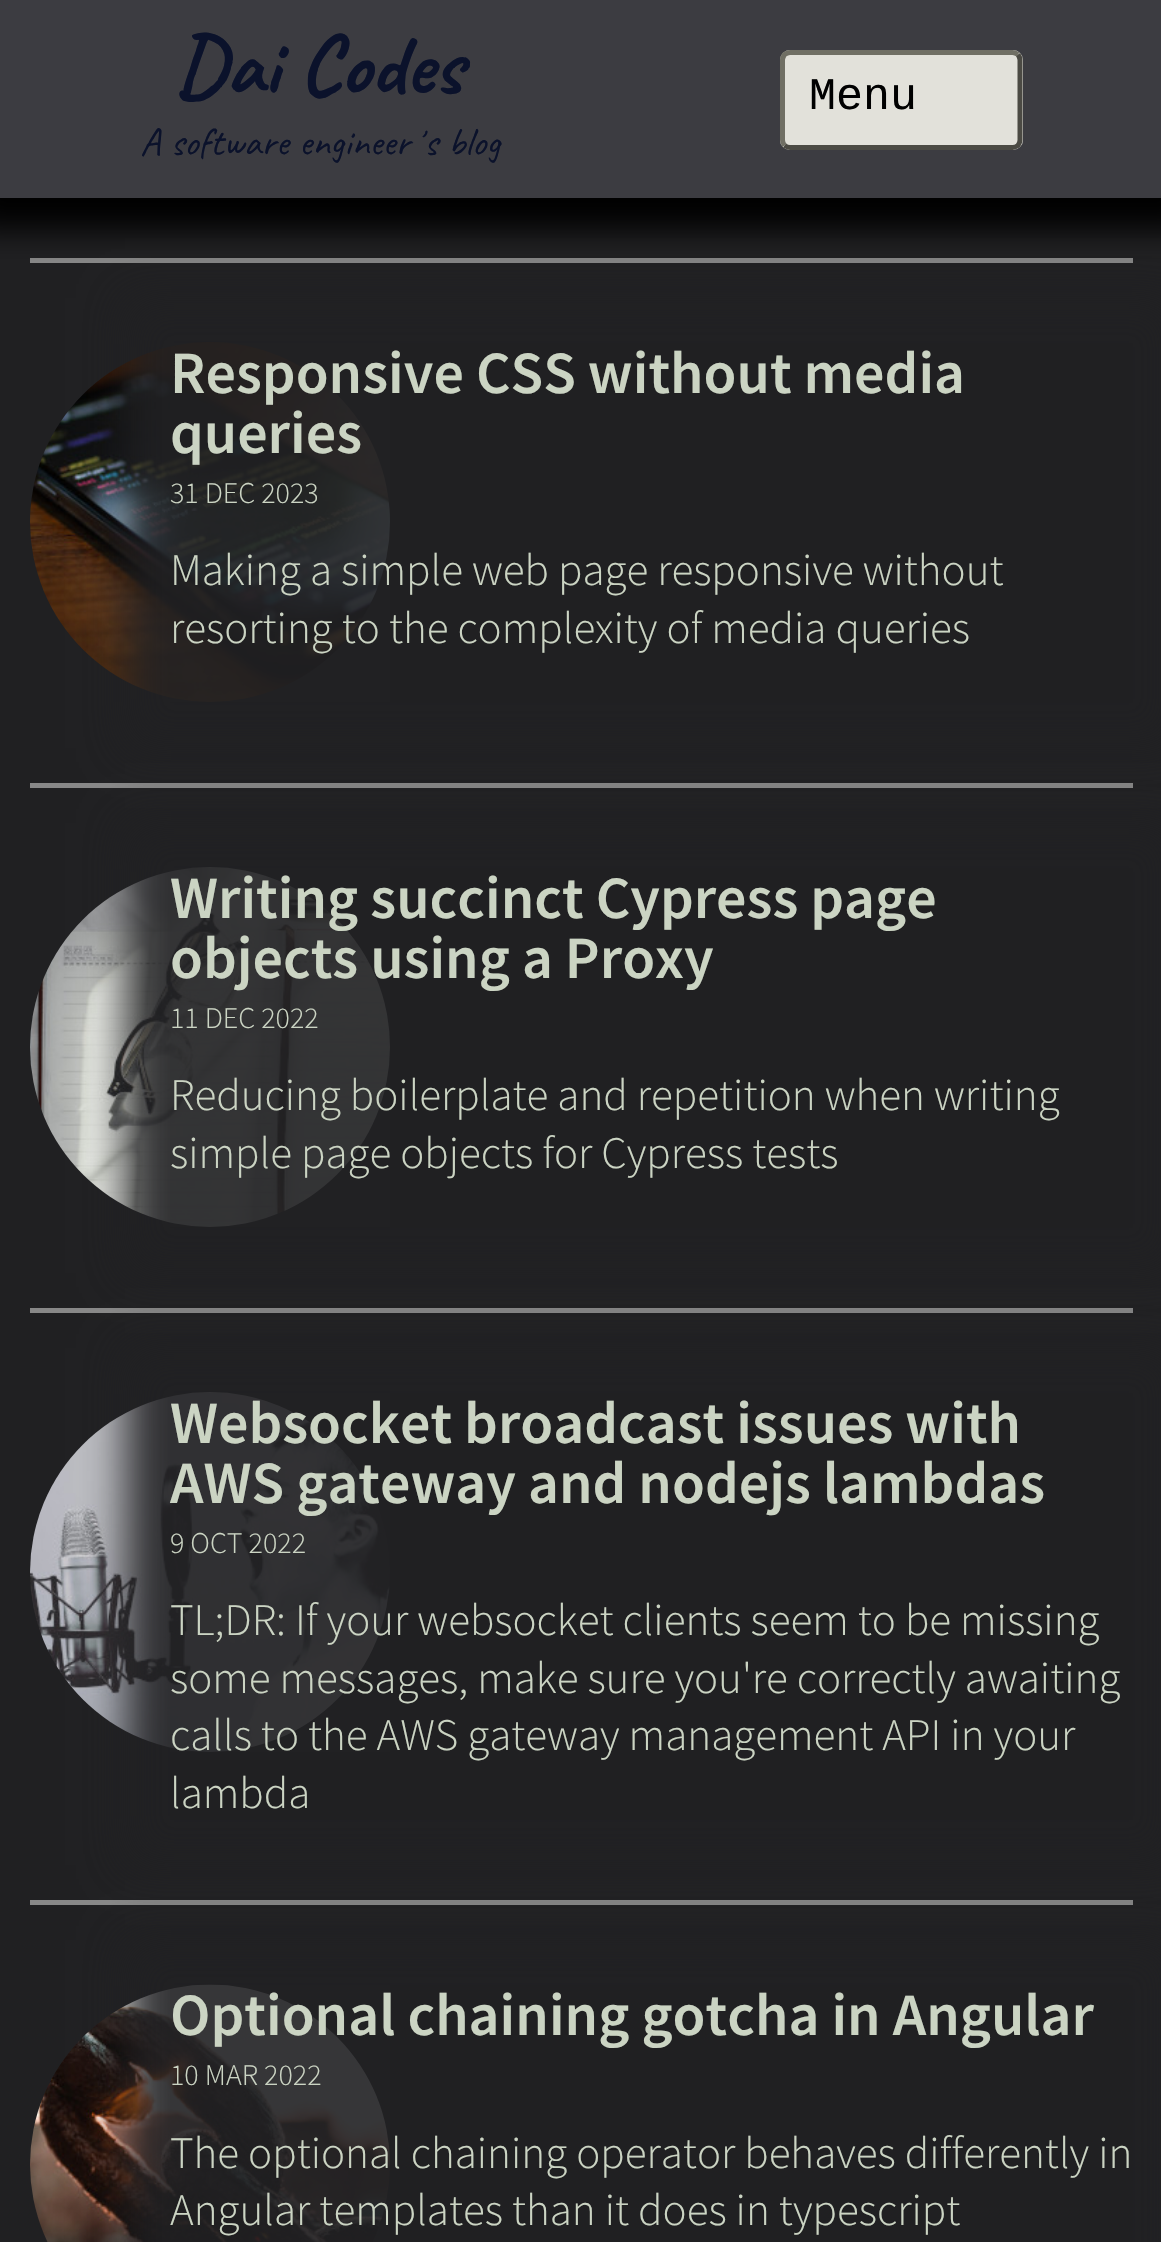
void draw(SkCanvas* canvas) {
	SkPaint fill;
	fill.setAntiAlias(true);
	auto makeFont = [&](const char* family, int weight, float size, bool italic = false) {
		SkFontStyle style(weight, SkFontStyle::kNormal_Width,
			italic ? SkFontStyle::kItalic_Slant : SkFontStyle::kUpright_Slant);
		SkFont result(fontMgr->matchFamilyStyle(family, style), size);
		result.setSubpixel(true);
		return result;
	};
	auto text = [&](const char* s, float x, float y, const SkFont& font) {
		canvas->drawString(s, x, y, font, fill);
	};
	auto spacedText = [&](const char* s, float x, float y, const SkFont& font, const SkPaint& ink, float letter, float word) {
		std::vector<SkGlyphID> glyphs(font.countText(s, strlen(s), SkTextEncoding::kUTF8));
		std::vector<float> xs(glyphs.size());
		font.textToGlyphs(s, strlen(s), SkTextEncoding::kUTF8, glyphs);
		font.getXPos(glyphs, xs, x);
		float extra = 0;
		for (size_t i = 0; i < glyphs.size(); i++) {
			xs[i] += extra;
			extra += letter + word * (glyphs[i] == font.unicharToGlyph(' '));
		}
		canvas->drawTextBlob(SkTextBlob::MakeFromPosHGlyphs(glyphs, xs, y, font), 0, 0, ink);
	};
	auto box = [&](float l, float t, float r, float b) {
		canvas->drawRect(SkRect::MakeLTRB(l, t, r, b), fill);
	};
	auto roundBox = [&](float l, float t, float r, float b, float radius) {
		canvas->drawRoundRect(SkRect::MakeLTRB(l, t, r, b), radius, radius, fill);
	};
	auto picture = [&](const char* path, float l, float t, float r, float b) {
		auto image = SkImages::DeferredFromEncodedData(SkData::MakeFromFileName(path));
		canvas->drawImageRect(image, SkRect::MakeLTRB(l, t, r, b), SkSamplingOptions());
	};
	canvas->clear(0xFF202022);
	fill.setColor(0xFF888888);
	box(30, 258, 1133, 263);
	fill.setColor(0xFF000000);
	fill.setMaskFilter(SkMaskFilter::MakeBlur(kNormal_SkBlurStyle, 15));
	canvas->drawRect(SkRect::MakeLTRB(-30, -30, 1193, 230), fill);
	fill.setMaskFilter(nullptr);
	fill.setColor(0xFF3C3C41);
	box(0, 0, 1161, 198);
	fill.setColor(0xFFE2E1DA);
	roundBox(780, 50, 1023, 150, 10);
	fill.setStyle(SkPaint::kStroke_Style);
	fill.setStrokeWidth(5);
	fill.setColor(0xFF4B4A43);
	canvas->drawPath(SkPathBuilder().moveTo(1018, 54.5f).cubicTo(1019, 56, 1020, 58, 1020, 60).lineTo(1020, 140).cubicTo(1020, 142, 1019, 144, 1018, 145.5f).cubicTo(1016.5f, 146.5f, 1014.5f, 147.5f, 1012.5f, 147.5f).lineTo(790, 147.5f).cubicTo(788, 147.5f, 786, 146.5f, 784.5f, 145.5f).detach(), fill);
	fill.setColor(0xFF706F64);
	canvas->drawPath(SkPathBuilder().moveTo(784.5f, 145.5f).cubicTo(783.5f, 144, 782.5f, 142, 782.5f, 140).lineTo(782.5f, 60).cubicTo(782.5f, 58, 783.5f, 56, 784.5f, 54.5f).cubicTo(786, 53.5f, 788, 52.5f, 790, 52.5f).lineTo(1012.5f, 52.5f).cubicTo(1014.5f, 52.5f, 1016.5f, 53.5f, 1018, 54.5f).detach(), fill);
	fill.setStyle(SkPaint::kFill_Style);
	fill.setColor(0xFF888888);
	box(30, 783, 1133, 788);
	picture("image0.png", 30, 342, 390, 702);
	canvas->save();
	canvas->clipPath(SkPathBuilder(SkPathFillType::kEvenOdd).moveTo(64, 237).lineTo(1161, 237).lineTo(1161, 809).lineTo(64, 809).close().moveTo(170, 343).lineTo(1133, 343).lineTo(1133, 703).lineTo(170, 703).close().detach(), true);
	fill.setColor(0xE6202022);
	fill.setMaskFilter(SkMaskFilter::MakeBlur(kNormal_SkBlurStyle, 20));
	canvas->drawRect(SkRect::MakeLTRB(125, 298, 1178, 748), fill);
	fill.setMaskFilter(nullptr);
	canvas->restore();
	box(170, 343, 390, 702);
	fill.setColor(0xFF888888);
	box(30, 1308, 1133, 1313);
	picture("image1.png", 30, 867, 390, 1227);
	canvas->save();
	canvas->clipPath(SkPathBuilder(SkPathFillType::kEvenOdd).moveTo(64, 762).lineTo(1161, 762).lineTo(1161, 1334).lineTo(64, 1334).close().moveTo(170, 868).lineTo(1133, 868).lineTo(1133, 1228).lineTo(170, 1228).close().detach(), true);
	fill.setColor(0xE6202022);
	fill.setMaskFilter(SkMaskFilter::MakeBlur(kNormal_SkBlurStyle, 20));
	canvas->drawRect(SkRect::MakeLTRB(125, 823, 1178, 1273), fill);
	fill.setMaskFilter(nullptr);
	canvas->restore();
	box(170, 868, 390, 1227);
	fill.setColor(0xFF888888);
	box(30, 1900, 1133, 1905);
	picture("image2.png", 30, 1392, 390, 1752);
	canvas->save();
	canvas->clipPath(SkPathBuilder(SkPathFillType::kEvenOdd).moveTo(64, 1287).lineTo(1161, 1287).lineTo(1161, 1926).lineTo(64, 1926).close().moveTo(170, 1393).lineTo(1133, 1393).lineTo(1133, 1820).lineTo(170, 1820).close().detach(), true);
	fill.setColor(0xE6202022);
	fill.setMaskFilter(SkMaskFilter::MakeBlur(kNormal_SkBlurStyle, 20));
	canvas->drawRect(SkRect::MakeLTRB(125, 1348, 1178, 1865), fill);
	fill.setMaskFilter(nullptr);
	canvas->restore();
	box(170, 1393, 390, 1752);
	picture("image3.png", 30, 1984, 390, 2242);
	canvas->save();
	canvas->clipPath(SkPathBuilder(SkPathFillType::kEvenOdd).moveTo(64, 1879).lineTo(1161, 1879).lineTo(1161, 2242).lineTo(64, 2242).close().moveTo(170, 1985).lineTo(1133, 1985).lineTo(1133, 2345).lineTo(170, 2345).close().detach(), true);
	fill.setMaskFilter(SkMaskFilter::MakeBlur(kNormal_SkBlurStyle, 20));
	canvas->drawRect(SkRect::MakeLTRB(125, 1940, 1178, 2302), fill);
	fill.setMaskFilter(nullptr);
	canvas->restore();
	box(170, 1985, 390, 2242);
	auto font1 = makeFont("Caveat", 700, 85);
	fill.setColor(0xFF0B122B);
	spacedText("Dai Codes", 175, 93, font1, fill, 0, -1);
	auto font2 = makeFont("Caveat", 400, 40);
	spacedText("A software engineerʼs blog", 140, 155, font2, fill, 0, 0.5f);
	auto font3 = makeFont("Liberation Mono", 400, 45);
	fill.setColor(0xFF000000);
	text("Menu", 809, 109, font3);
	auto font4 = makeFont("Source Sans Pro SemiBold", 600, 60);
	fill.setColor(0xFFCBD4C3);
	text("Responsive CSS without media", 170, 393, font4);
	text("queries", 170, 453, font4);
	auto font5 = makeFont("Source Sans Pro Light", 300, 30);
	text("31 DEC 2023", 170, 503, font5);
	auto font6 = makeFont("Source Sans Pro Light", 300, 45);
	text("Making a simple web page responsive without", 170, 585, font6);
	text("resorting to the complexity of media queries", 170, 643, font6);
	text("Writing succinct Cypress page", 170, 918, font4);
	text("objects using a Proxy", 170, 978, font4);
	text("11 DEC 2022", 170, 1028, font5);
	text("Reducing boilerplate and repetition when writing", 170, 1110, font6);
	text("simple page objects for Cypress tests", 170, 1168, font6);
	text("Websocket broadcast issues with", 170, 1443, font4);
	text("AWS gateway and nodejs lambdas", 170, 1503, font4);
	text("9 OCT 2022", 170, 1553, font5);
	text("TL;DR: If your websocket clients seem to be missing", 170, 1635, font6);
	text("some messages, make sure you're correctly awaiting", 170, 1693, font6);
	text("calls to the AWS gateway management API in your", 170, 1750, font6);
	text("lambda", 170, 1808, font6);
	text("Optional chaining gotcha in Angular", 170, 2035, font4);
	text("10 MAR 2022", 170, 2085, font5);
	text("The optional chaining operator behaves differently in", 170, 2168, font6);
	text("Angular templates than it does in typescript", 170, 2225, font6);
}
